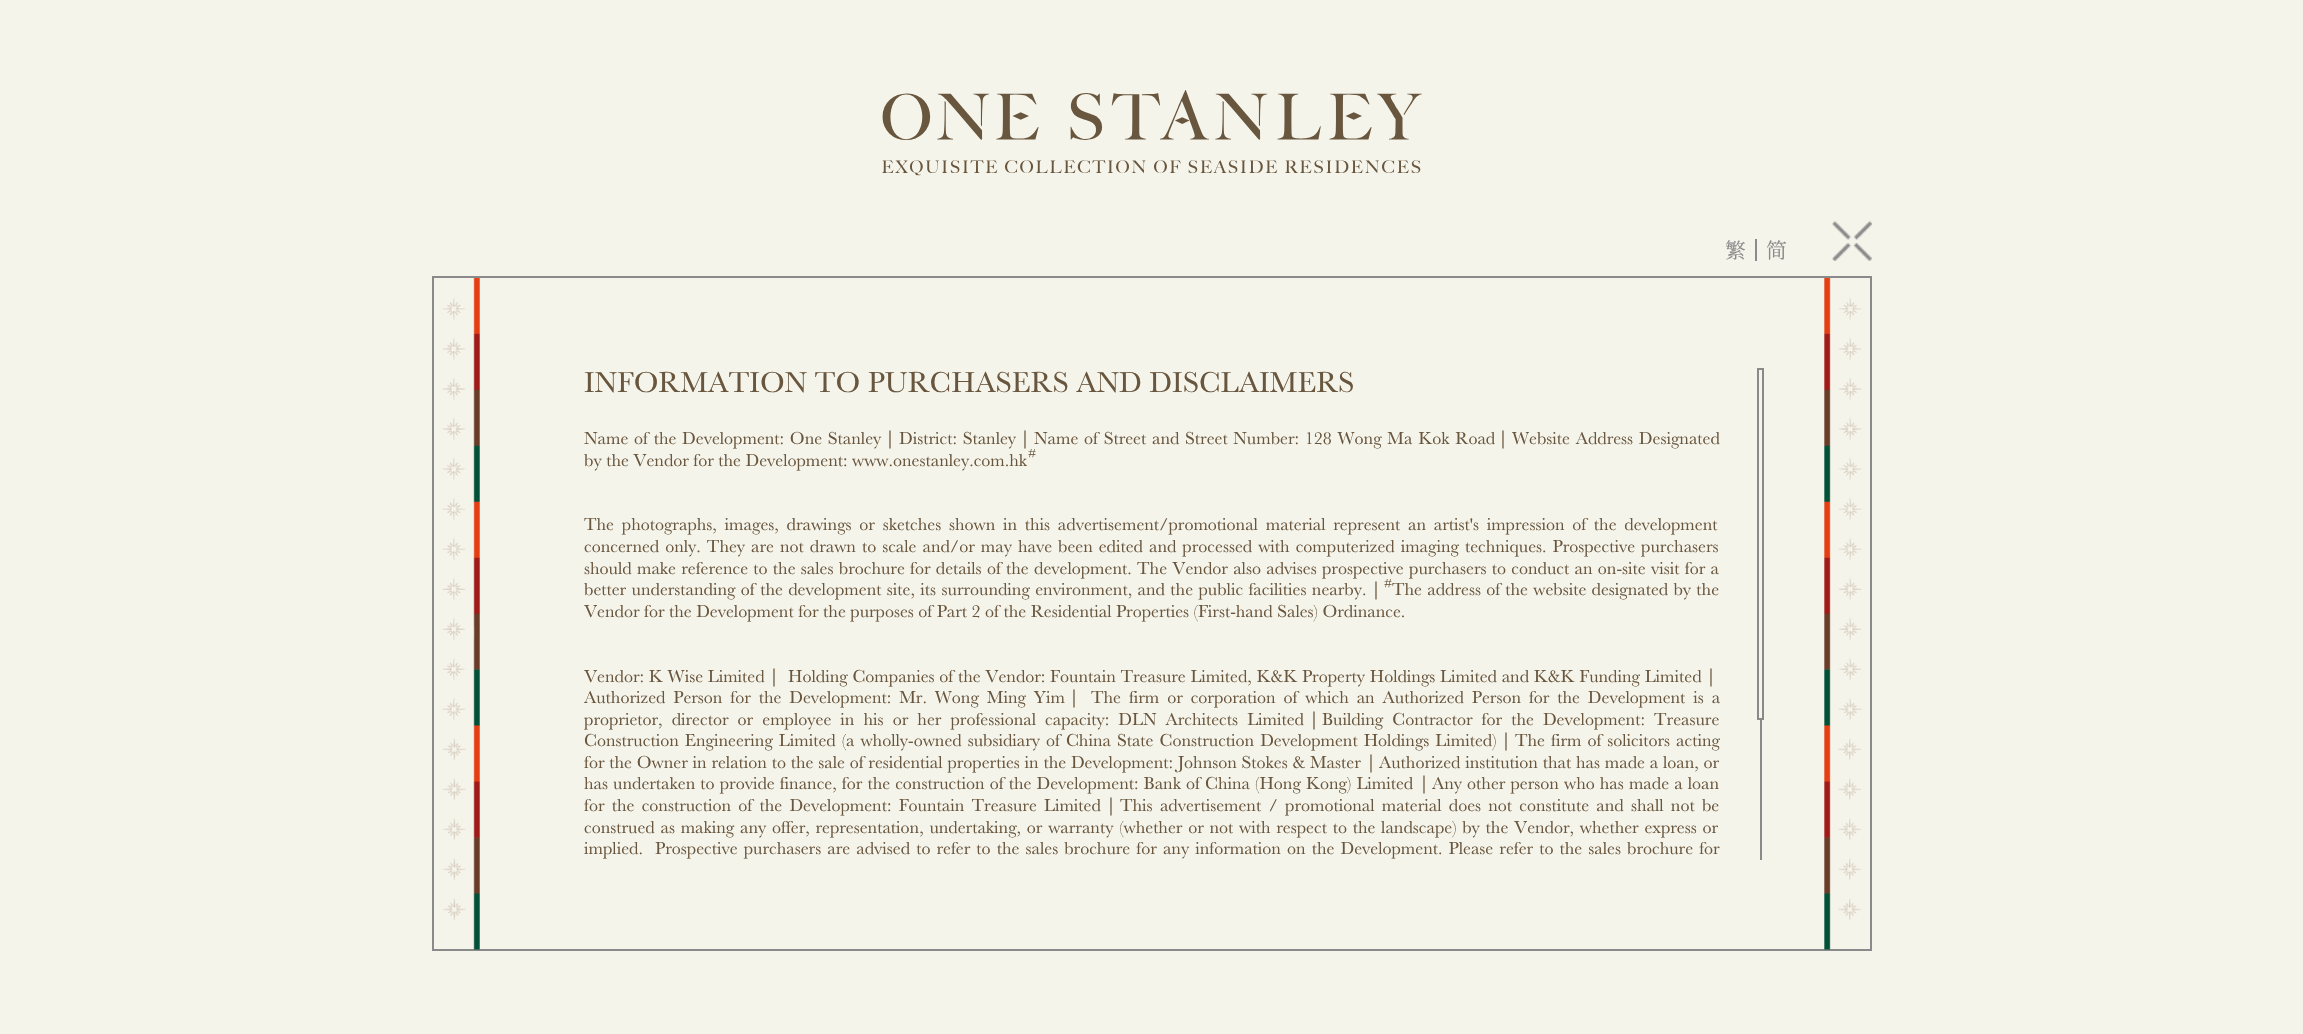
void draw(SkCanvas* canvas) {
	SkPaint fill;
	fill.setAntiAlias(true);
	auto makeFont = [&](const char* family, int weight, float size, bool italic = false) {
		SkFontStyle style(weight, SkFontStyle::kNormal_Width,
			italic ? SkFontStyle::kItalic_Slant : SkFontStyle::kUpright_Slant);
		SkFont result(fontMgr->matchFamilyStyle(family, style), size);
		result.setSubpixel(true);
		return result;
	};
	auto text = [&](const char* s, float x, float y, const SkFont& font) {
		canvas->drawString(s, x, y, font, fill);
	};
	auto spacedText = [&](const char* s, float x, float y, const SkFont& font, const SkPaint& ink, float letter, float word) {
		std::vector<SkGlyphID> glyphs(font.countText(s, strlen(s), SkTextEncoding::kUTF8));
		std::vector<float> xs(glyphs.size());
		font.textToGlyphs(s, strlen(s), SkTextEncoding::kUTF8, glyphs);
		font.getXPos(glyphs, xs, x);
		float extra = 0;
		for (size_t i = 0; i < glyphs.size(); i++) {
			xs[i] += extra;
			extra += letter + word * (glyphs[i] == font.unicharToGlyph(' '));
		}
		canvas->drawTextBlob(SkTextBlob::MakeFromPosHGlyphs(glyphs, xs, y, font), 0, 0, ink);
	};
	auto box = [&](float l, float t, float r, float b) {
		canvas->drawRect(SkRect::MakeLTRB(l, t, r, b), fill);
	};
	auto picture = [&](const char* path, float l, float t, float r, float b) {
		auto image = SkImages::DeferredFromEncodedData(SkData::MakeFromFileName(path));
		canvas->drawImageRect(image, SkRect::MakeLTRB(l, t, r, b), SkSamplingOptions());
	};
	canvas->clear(0xFFF5F4EA);
	picture("image0.png", 882, 90, 1422, 176);
	fill.setColor(0xFF8B8A8A);
	box(1755, 239, 1757, 261);
	picture("image1.png", 1831, 220, 1872, 261);
	fill.setStyle(SkPaint::kStroke_Style);
	fill.setStrokeWidth(2);
	canvas->drawRect(SkRect::MakeLTRB(433, 277, 1871, 950), fill);
	picture("image2.png", 442, 278, 480, 950);
	fill.setStyle(SkPaint::kFill_Style);
	box(1760, 720, 1762, 860);
	fill.setStyle(SkPaint::kStroke_Style);
	canvas->drawRect(SkRect::MakeLTRB(1758, 369, 1763, 719), fill);
	picture("image3.png", 1824, 278, 1862, 950);
	auto font1 = makeFont("Noto Serif TC", 400, 21);
	fill.setStyle(SkPaint::kFill_Style);
	text("繁", 1725, 258, font1);
	auto font2 = makeFont("Noto Serif SC", 400, 21);
	text("简", 1766, 258, font2);
	auto font3 = makeFont("Baskerville", 400, 30);
	fill.setColor(0xFF69563E);
	text("INFORMATION TO PURCHASERS AND DISCLAIMERS", 584, 392, font3);
	auto font4 = makeFont("Baskerville", 400, 18);
	spacedText("Name of the Development: One Stanley", 584, 444, font4, fill, 0, 1.25f);
	auto font5 = makeFont("WenQuanYi Zen Hei", 500, 18);
	text("｜", 881, 444, font5);
	spacedText("District: Stanley", 899, 444, font4, fill, 0, 1.25f);
	text("｜", 1016, 444, font5);
	spacedText("Name of Street and Street Number: 128 Wong Ma Kok Road", 1034, 444, font4, fill, 0, 1.25f);
	text("｜", 1494, 444, font5);
	spacedText("Website Address Designated", 1512, 444, font4, fill, 0, 1.25f);
	text("by the Vendor for the Development: www.onestanley.com.hk", 584, 466, font4);
	auto font6 = makeFont("Baskerville", 400, 12);
	text("#", 1028, 457, font6);
	spacedText("The photographs, images, drawings or sketches shown in this advertisement/promotional material represent an artist's impression of the development", 584, 530, font4, fill, 0, 3.25f);
	spacedText("concerned only. They are not drawn to scale and/or may have been edited and processed with computerized imaging techniques. Prospective purchasers", 584, 552, font4, fill, 0, 1.5f);
	spacedText("should make reference to the sales brochure for details of the development. The Vendor also advises prospective purchasers to conduct an on-site visit for a", 584, 574, font4, fill, 0, 0.8f);
	spacedText("better understanding of the development site, its surrounding environment, and the public facilities nearby.", 584, 595, font4, fill, 0, 0.9f);
	text("｜", 1367, 595, font5);
	text("#", 1384, 587, font6);
	spacedText("The address of the website designated by the", 1392, 595, font4, fill, 0, 0.75f);
	text("Vendor for the Development for the purposes of Part 2 of the Residential Properties (First-hand Sales) Ordinance.", 584, 617, font4);
	spacedText("Vendor: K Wise Limited", 584, 682, font4, fill, 0, 0.25f);
	text("｜", 765, 682, font5);
	spacedText("Holding Companies of the Vendor: Fountain Treasure Limited, K&K Property Holdings Limited and K&K Funding Limited", 788, 682, font4, fill, 0, 0.25f);
	text("｜", 1702, 682, font5);
	spacedText("Authorized Person for the Development: Mr. Wong Ming Yim", 584, 703, font4, fill, 0, 3.4f);
	text("｜", 1065, 703, font5);
	spacedText("The firm or corporation of which an Authorized Person for the Development is a", 1091, 703, font4, fill, 0, 3.4f);
	spacedText("proprietor, director or employee in his or her professional capacity: DLN Architects Limited", 584, 725, font4, fill, 0, 4.6f);
	text("｜", 1305, 725, font5);
	spacedText("Building Contractor for the Development: Treasure", 1322, 725, font4, fill, 0, 4.6f);
	spacedText("Construction Engineering Limited (a wholly-owned subsidiary of China State Construction Development Holdings Limited)", 584, 746, font4, fill, 0, 1.5f);
	text("｜", 1497, 746, font5);
	spacedText("The firm of solicitors acting", 1515, 746, font4, fill, 0, 1.5f);
	spacedText("for the Owner in relation to the sale of residential properties in the Development: Johnson Stokes & Master", 584, 768, font4, fill, 0, 0.3f);
	text("｜", 1362, 768, font5);
	spacedText("Authorized institution that has made a loan, or", 1379, 768, font4, fill, 0, 0.3f);
	spacedText("has undertaken to provide finance, for the construction of the Development: Bank of China (Hong Kong) Limited", 584, 789, font4, fill, 0, 0.6f);
	text("｜", 1415, 789, font5);
	spacedText("Any other person who has made a loan", 1432, 789, font4, fill, 0, 0.6f);
	spacedText("for the construction of the Development: Fountain Treasure Limited", 584, 811, font4, fill, 0, 2.75f);
	text("｜", 1102, 811, font5);
	spacedText("This advertisement / promotional material does not constitute and shall not be", 1120, 811, font4, fill, 0, 2.75f);
	spacedText("construed as making any offer, representation, undertaking, or warranty (whether or not with respect to the landscape) by the Vendor, whether express or", 584, 833, font4, fill, 0, 1.25f);
	spacedText("implied.  Prospective purchasers are advised to refer to the sales brochure for any information on the Development. Please refer to the sales brochure for", 584, 854, font4, fill, 0, 1.6f);
}
